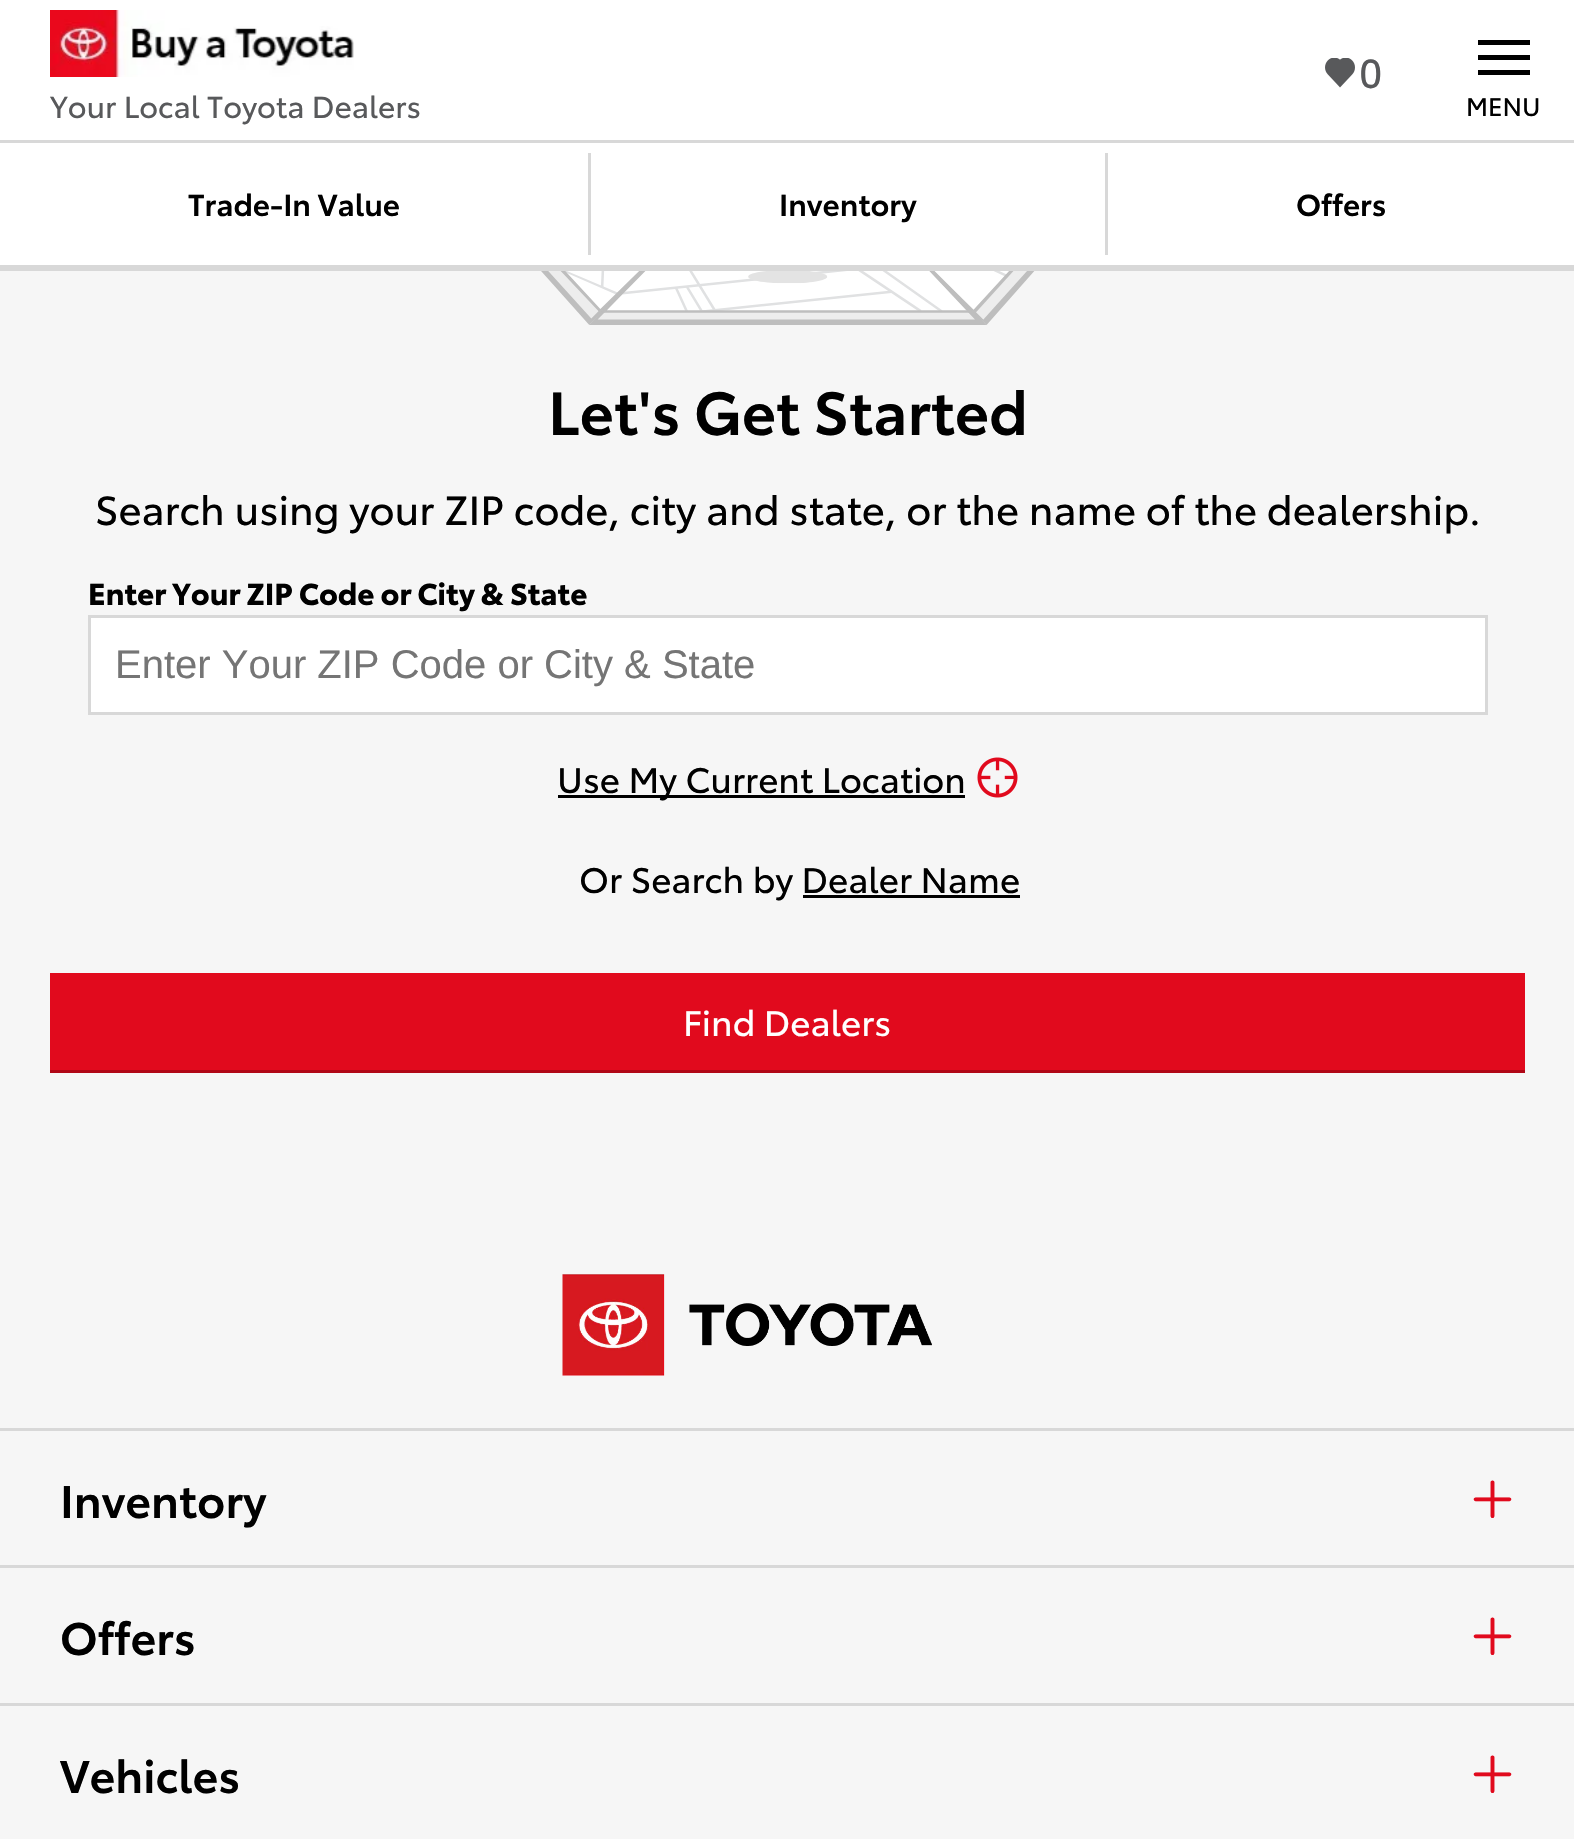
void draw(SkCanvas* canvas) {
	SkPaint fill;
	fill.setAntiAlias(true);
	auto makeFont = [&](const char* family, int weight, float size, bool italic = false) {
		SkFontStyle style(weight, SkFontStyle::kNormal_Width,
			italic ? SkFontStyle::kItalic_Slant : SkFontStyle::kUpright_Slant);
		SkFont result(fontMgr->matchFamilyStyle(family, style), size);
		result.setSubpixel(true);
		return result;
	};
	auto text = [&](const char* s, float x, float y, const SkFont& font) {
		canvas->drawString(s, x, y, font, fill);
	};
	auto box = [&](float l, float t, float r, float b) {
		canvas->drawRect(SkRect::MakeLTRB(l, t, r, b), fill);
	};
	auto picture = [&](const char* path, float l, float t, float r, float b) {
		auto image = SkImages::DeferredFromEncodedData(SkData::MakeFromFileName(path));
		canvas->drawImageRect(image, SkRect::MakeLTRB(l, t, r, b), SkSamplingOptions());
	};
	canvas->clear(0xFFF6F6F6);
	fill.setColor(0xFFFFFFFF);
	box(0, 0, 1574, 265);
	fill.setColor(0xFFD8D8D8);
	box(0, 265, 1574, 271);
	box(0, 140, 1574, 143);
	picture("image0.png", 1325, 58, 1355, 88);
	picture("image1.png", 50, 10, 354, 77);
	fill.setColor(0xFF000000);
	box(1478, 40, 1530, 45);
	box(1478, 55, 1530, 60);
	box(1478, 70, 1530, 75);
	fill.setColor(0xFFD8D8D8);
	box(588, 153, 591, 255);
	box(1105, 153, 1108, 255);
	picture("image2.png", 541, 271, 1035, 325);
	fill.setColor(0xFFFFFFFF);
	canvas->drawRect(SkRect::MakeLTRB(89.5f, 616.5f, 1486.5f, 713.5f), fill);
	fill.setStyle(SkPaint::kStroke_Style);
	fill.setStrokeWidth(3);
	fill.setColor(0xFFD8D8D8);
	canvas->drawRect(SkRect::MakeLTRB(89.5f, 616.5f, 1486.5f, 713.5f), fill);
	fill.setStyle(SkPaint::kFill_Style);
	fill.setColor(0xFF000000);
	box(558, 795, 965, 798);
	picture("image3.png", 977, 757, 1018, 798);
	box(803, 895, 1020, 898);
	fill.setColor(0xFFE10A1D);
	box(50, 973, 1525, 1070);
	fill.setColor(0xFFB00716);
	box(50, 1070, 1525, 1073);
	fill.setColor(0xFFD8D8D8);
	box(0, 1428, 1574, 1431);
	picture("image4.png", 562, 1274, 932, 1376);
	box(0, 1565, 1574, 1568);
	box(0, 1703, 1574, 1706);
	auto font1 = makeFont("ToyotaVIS", 400, 40);
	fill.setColor(0xFF58595B);
	text("0", 1359, 88, font1);
	auto font2 = makeFont("ToyotaVIS", 400, 30);
	text("Your Local Toyota Dealers", 50, 118, font2);
	auto font3 = makeFont("ToyotaVIS", 400, 25);
	fill.setColor(0xFF000000);
	text("MENU", 1466, 116, font3);
	auto font4 = makeFont("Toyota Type", 600, 30);
	text("Trade-In Value", 188, 216, font4);
	text("Inventory", 779, 216, font4);
	text("Offers", 1296, 216, font4);
	auto font5 = makeFont("Toyota Type", 600, 60);
	text("Let's Get Started", 548, 435, font5);
	text("Search using your ZIP code, city and state, or the name of the dealership.", 95, 525, font1);
	auto font6 = makeFont("ToyotaVIS", 700, 30);
	text("Enter Your ZIP Code or City & State", 88, 605, font6);
	auto font7 = makeFont("Liberation Sans", 400, 40);
	fill.setColor(0xFF757575);
	text("Enter Your ZIP Code or City & State", 115, 678, font7);
	auto font8 = makeFont("ToyotaVIS", 400, 35);
	fill.setColor(0xFF000000);
	text("Use My Current Location", 557, 793, font8);
	text("Or Search by Dealer Name", 579, 893, font8);
	fill.setColor(0xFFFFFFFF);
	text("Find Dealers", 683, 1036, font8);
	auto font9 = makeFont("Toyota Type", 600, 45);
	fill.setColor(0xFF000000);
	text("Inventory", 60, 1518, font9);
	auto font10 = makeFont("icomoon", 400, 45);
	fill.setColor(0xFFE10A1D);
	text("#", 1470, 1518, font10);
	fill.setColor(0xFF000000);
	text("Offers", 60, 1655, font9);
	fill.setColor(0xFFE10A1D);
	text("#", 1470, 1655, font10);
	fill.setColor(0xFF000000);
	text("Vehicles", 60, 1793, font9);
	fill.setColor(0xFFE10A1D);
	text("#", 1470, 1793, font10);
}
